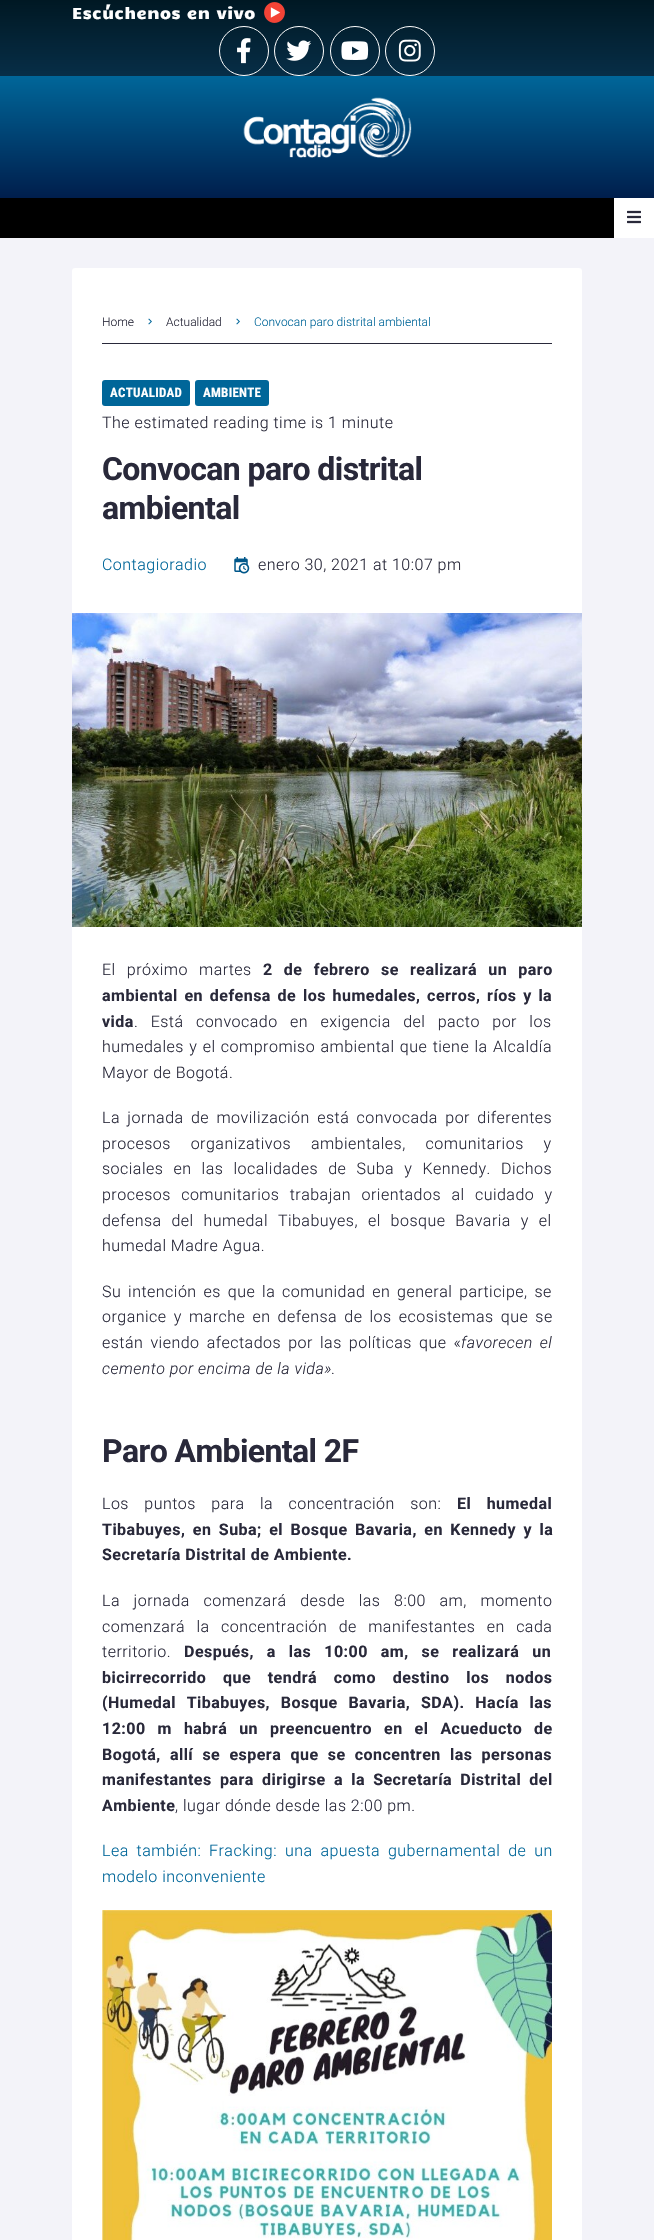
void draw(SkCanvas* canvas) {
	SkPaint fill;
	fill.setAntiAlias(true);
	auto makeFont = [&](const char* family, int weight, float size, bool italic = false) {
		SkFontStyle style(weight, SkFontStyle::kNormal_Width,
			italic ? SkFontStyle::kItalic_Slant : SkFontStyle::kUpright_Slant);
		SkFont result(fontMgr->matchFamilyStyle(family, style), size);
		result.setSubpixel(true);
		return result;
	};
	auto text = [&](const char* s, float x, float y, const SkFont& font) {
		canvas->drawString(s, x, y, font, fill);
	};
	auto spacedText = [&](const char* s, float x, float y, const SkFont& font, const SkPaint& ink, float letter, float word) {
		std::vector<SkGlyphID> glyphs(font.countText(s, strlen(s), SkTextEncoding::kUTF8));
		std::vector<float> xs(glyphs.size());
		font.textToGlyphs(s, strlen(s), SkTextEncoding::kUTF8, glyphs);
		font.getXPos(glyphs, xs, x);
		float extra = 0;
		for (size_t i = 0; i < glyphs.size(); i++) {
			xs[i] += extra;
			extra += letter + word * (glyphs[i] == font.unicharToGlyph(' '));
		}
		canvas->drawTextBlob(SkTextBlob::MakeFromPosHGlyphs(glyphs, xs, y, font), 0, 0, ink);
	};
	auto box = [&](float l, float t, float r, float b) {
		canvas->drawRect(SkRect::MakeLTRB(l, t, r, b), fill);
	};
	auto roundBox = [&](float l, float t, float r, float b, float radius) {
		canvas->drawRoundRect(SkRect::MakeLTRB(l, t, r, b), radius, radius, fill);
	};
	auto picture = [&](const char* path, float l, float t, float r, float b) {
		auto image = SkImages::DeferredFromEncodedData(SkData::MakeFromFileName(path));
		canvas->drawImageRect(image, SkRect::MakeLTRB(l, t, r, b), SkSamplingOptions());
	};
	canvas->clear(0xFFF3F3F9);
	{
		const SkColor colors[] = {0xFF001823, 0xFF072E47};
		const float stops[] = {0, 1};
		const SkPoint ends[] = {{327, 0}, {327, 76}};
		fill.setShader(SkGradientShader::MakeLinear(ends, colors, stops, 2, SkTileMode::kClamp));
		fill.setAlpha(255);
	}
	box(0, 0, 654, 76);
	picture("image0.png", 264, 2, 285, 23);
	fill.setStyle(SkPaint::kStroke_Style);
	fill.setStrokeWidth(1);
	fill.setShader(nullptr);
	fill.setColor(0xFFFFFFFF);
	canvas->drawCircle(244, 51, 24.5f, fill);
	picture("image1.png", 237, 38, 251, 64);
	canvas->drawCircle(299, 51, 24.5f, fill);
	picture("image2.png", 286, 40, 311, 61);
	canvas->drawCircle(355, 51, 24.5f, fill);
	picture("image3.png", 341, 41, 369, 60);
	canvas->drawCircle(410, 51, 24.5f, fill);
	picture("image4.png", 398, 39, 421, 62);
	fill.setStyle(SkPaint::kFill_Style);
	{
		const SkColor colors[] = {0xFF006699, 0xFF001E4C};
		const float stops[] = {0, 1};
		const SkPoint ends[] = {{327, 76}, {327, 198}};
		fill.setShader(SkGradientShader::MakeLinear(ends, colors, stops, 2, SkTileMode::kClamp));
		fill.setAlpha(255);
	}
	box(0, 76, 654, 198);
	picture("image5.png", 243, 97, 412, 158);
	fill.setShader(nullptr);
	fill.setColor(0xFF000000);
	box(0, 198, 614, 238);
	fill.setColor(0xFFFFFFFF);
	box(614, 198, 654, 238);
	picture("image6.png", 627, 210, 641, 224);
	roundBox(72, 268, 582, 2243, 3);
	fill.setColor(0xFF29293A);
	box(102, 343, 552, 344);
	picture("image7.png", 148, 318, 152, 325);
	picture("image7.png", 236, 318, 240, 325);
	fill.setColor(0xFF006699);
	roundBox(102, 380, 190, 406, 3);
	roundBox(195, 380, 269, 406, 3);
	picture("image8.png", 234, 557, 250, 574);
	picture("image9.png", 72, 613, 582, 927);
	picture("image10.png", 102, 1910, 552, 2240);
	auto font1 = makeFont("Candal", 400, 16);
	fill.setColor(0xFFFFFFFF);
	spacedText("Escúchenos en vivo", 72, 19, font1, fill, 0.48f, 0);
	auto font2 = makeFont("Roboto", 300, 12);
	fill.setColor(0xFF29293A);
	text("Home", 102, 326, font2);
	text("Actualidad", 166, 326, font2);
	fill.setColor(0xFF006699);
	text("Convocan paro distrital ambiental", 254, 326, font2);
	auto font3 = makeFont("Roboto Condensed", 700, 13);
	fill.setColor(0xFFFFFFFF);
	spacedText("ACTUALIDAD", 110, 397, font3, fill, 0.25f, 0);
	spacedText("AMBIENTE", 203, 397, font3, fill, 0.25f, 0);
	auto font4 = makeFont("Roboto", 300, 16);
	fill.setColor(0xFF29293A);
	spacedText("The estimated reading time is 1 minute", 102, 428, font4, fill, 0.48f, 0);
	auto font5 = makeFont("Roboto", 700, 32);
	spacedText("Convocan paro distrital", 102, 480, font5, fill, -0.6f, 0);
	spacedText("ambiental", 102, 519, font5, fill, -0.6f, 0);
	fill.setColor(0xFF006699);
	spacedText("Contagioradio", 102, 570, font4, fill, 0.48f, 0);
	fill.setColor(0xFF29293A);
	spacedText("enero 30, 2021 at 10:07 pm", 258, 570, font4, fill, 0.48f, 0);
	spacedText("El próximo martes", 102, 975, font4, fill, 0.48f, 6.75f);
	auto font6 = makeFont("Roboto", 700, 16);
	spacedText("2 de febrero se realizará un paro", 263, 975, font6, fill, 0.48f, 6.75f);
	spacedText("ambiental en defensa de los humedales, cerros, ríos y la", 102, 1001, font6, fill, 0.48f, 2.25f);
	spacedText("vida", 102, 1027, font6, fill, 0.48f, 0);
	spacedText(". Está convocado en exigencia del pacto por los", 134, 1027, font4, fill, 0.48f, 8);
	spacedText("humedales y el compromiso ambiental que tiene la Alcaldía", 102, 1052, font4, fill, 0.48f, 1);
	spacedText("Mayor de Bogotá.", 102, 1078, font4, fill, 0.48f, 0);
	spacedText("La jornada de movilización está convocada por diferentes", 102, 1123, font4, fill, 0.48f, 3);
	spacedText("procesos organizativos ambientales, comunitarios y", 102, 1149, font4, fill, 0.48f, 15.5f);
	spacedText("sociales en las localidades de Suba y Kennedy. Dichos", 102, 1174, font4, fill, 0.48f, 5.75f);
	spacedText("procesos comunitarios trabajan orientados al cuidado y", 102, 1200, font4, fill, 0.48f, 6);
	spacedText("defensa del humedal Tibabuyes, el bosque Bavaria y el", 102, 1226, font4, fill, 0.48f, 5.5f);
	spacedText("humedal Madre Agua.", 102, 1251, font4, fill, 0.48f, 0);
	spacedText("Su intención es que la comunidad en general participe, se", 102, 1297, font4, fill, 0.48f, 2.5f);
	spacedText("organice y marche en defensa de los ecosistemas que se", 102, 1322, font4, fill, 0.48f, 2.75f);
	spacedText("están viendo afectados por las políticas que «", 102, 1348, font4, fill, 0.48f, 2.75f);
	auto font7 = makeFont("Roboto", 300, 16, true);
	spacedText("favorecen el", 461, 1348, font7, fill, 0.48f, 2.75f);
	spacedText("cemento por encima de la vida».", 102, 1374, font7, fill, 0.48f, 0);
	spacedText("Paro Ambiental 2F", 102, 1462, font5, fill, -0.6f, 0);
	spacedText("Los puntos para la concentración son:", 102, 1509, font4, fill, 0.48f, 11);
	spacedText("El humedal", 457, 1509, font6, fill, 0.48f, 11);
	spacedText("Tibabuyes, en Suba; el Bosque Bavaria, en Kennedy y la", 102, 1535, font6, fill, 0.48f, 3);
	spacedText("Secretaría Distrital de Ambiente.", 102, 1560, font6, fill, 0.48f, 0);
	spacedText("La jornada comenzará desde las 8:00 am, momento", 102, 1606, font4, fill, 0.48f, 9.25f);
	spacedText("comenzará la concentración de manifestantes en cada", 102, 1632, font4, fill, 0.48f, 7);
	spacedText("territorio.", 102, 1657, font4, fill, 0.48f, 0);
	spacedText("Después, a las 10:00 am, se realizará un", 184, 1657, font6, fill, 0.48f, 8.5f);
	spacedText("bicirrecorrido que tendrá como destino los nodos", 102, 1683, font6, fill, 0.48f, 12.25f);
	spacedText("(Humedal Tibabuyes, Bosque Bavaria, SDA). Hacía las", 102, 1708, font6, fill, 0.48f, 6.25f);
	spacedText("12:00 m habrá un preencuentro en el Acueducto de", 102, 1734, font6, fill, 0.48f, 7.5f);
	spacedText("Bogotá, allí se espera que se concentren las personas", 102, 1760, font6, fill, 0.48f, 4.75f);
	spacedText("manifestantes para dirigirse a la Secretaría Distrital del", 102, 1785, font6, fill, 0.48f, 3.75f);
	spacedText("Ambiente", 102, 1811, font6, fill, 0.48f, 0);
	spacedText(", lugar dónde desde las 2:00 pm.", 175, 1811, font4, fill, 0.48f, 0);
	fill.setColor(0xFF006699);
	spacedText("Lea también:", 102, 1856, font4, fill, 0.48f, 3.5f);
	spacedText("Fracking: una apuesta gubernamental de un", 209, 1856, font4, fill, 0.48f, 3.5f);
	spacedText("modelo inconveniente", 102, 1882, font4, fill, 0.48f, 0);
}
